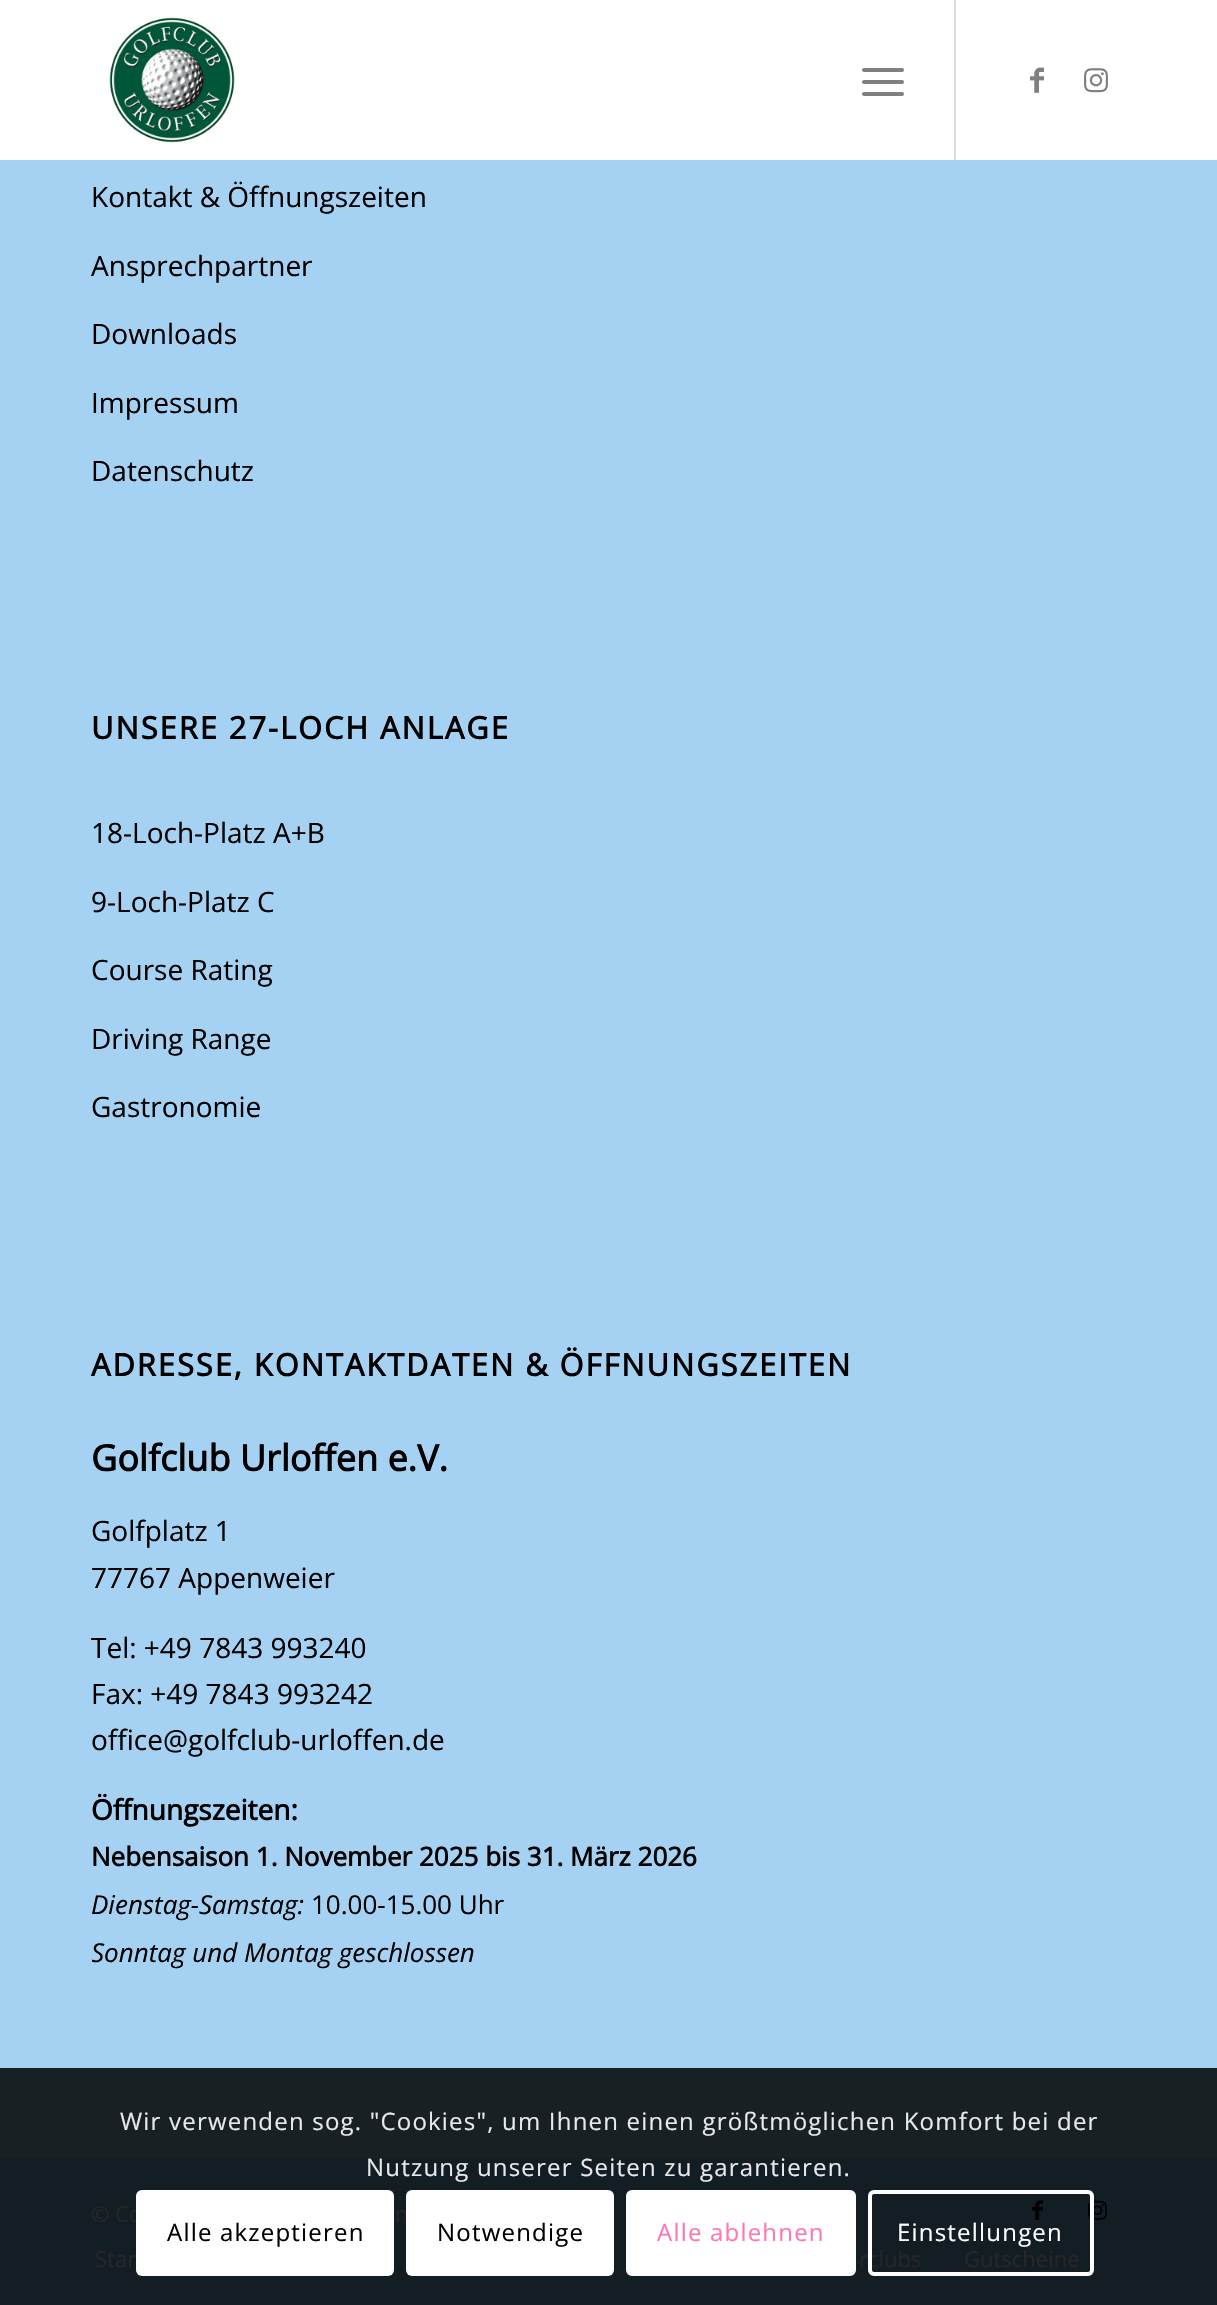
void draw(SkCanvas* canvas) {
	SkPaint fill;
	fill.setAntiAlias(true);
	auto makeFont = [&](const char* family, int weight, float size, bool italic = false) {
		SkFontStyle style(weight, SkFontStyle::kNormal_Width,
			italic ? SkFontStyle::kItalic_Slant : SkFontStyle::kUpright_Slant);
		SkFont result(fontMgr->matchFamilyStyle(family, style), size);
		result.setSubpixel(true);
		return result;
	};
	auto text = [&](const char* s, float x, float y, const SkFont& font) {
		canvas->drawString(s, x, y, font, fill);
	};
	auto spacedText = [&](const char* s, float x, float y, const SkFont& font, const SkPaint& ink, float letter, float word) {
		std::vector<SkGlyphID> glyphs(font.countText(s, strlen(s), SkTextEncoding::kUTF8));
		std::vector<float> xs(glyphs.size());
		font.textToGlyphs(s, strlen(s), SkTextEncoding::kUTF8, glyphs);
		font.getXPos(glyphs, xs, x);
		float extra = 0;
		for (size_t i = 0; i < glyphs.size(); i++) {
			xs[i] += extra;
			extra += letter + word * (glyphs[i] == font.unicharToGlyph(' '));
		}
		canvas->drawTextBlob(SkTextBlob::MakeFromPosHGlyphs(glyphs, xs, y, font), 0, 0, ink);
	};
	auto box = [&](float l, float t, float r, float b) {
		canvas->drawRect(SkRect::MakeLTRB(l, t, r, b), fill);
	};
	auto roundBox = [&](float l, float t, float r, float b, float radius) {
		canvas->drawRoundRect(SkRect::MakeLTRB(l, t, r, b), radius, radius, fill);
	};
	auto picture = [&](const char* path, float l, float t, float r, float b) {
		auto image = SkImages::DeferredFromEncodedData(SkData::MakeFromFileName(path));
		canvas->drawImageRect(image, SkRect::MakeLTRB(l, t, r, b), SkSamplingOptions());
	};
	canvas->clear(0xFFA5D2F3);
	fill.setColor(0xFFFFFFFF);
	box(0, 0, 1217, 160);
	picture("image0.png", 109, 17, 235, 143);
	fill.setColor(0xFFDDDDDD);
	box(954, 0, 956, 160);
	fill.setColor(0xFF808080);
	roundBox(862, 80, 904, 84, 2);
	roundBox(862, 68, 904, 72, 2);
	roundBox(862, 92, 904, 96, 2);
	picture("image1.png", 1030, 67, 1044, 93);
	picture("image2.png", 1084, 68, 1108, 93);
	fill.setColor(0xFF192024);
	box(0, 2068, 1217, 2158);
	fill.setColor(0xFF131D24);
	box(0, 2158, 1217, 2305);
	picture("image3.png", 1032, 2200, 1043, 2221);
	picture("image4.png", 1088, 2200, 1107, 2220);
	fill.setColor(0xFFFFFFFF);
	canvas->drawRoundRect(SkRect::MakeLTRB(628, 2192, 854, 2274), 4, 4, fill);
	fill.setStyle(SkPaint::kStroke_Style);
	fill.setStrokeWidth(4);
	canvas->drawRoundRect(SkRect::MakeLTRB(628, 2192, 854, 2274), 4, 4, fill);
	auto font1 = makeFont("Open Sans", 400, 28);
	fill.setStyle(SkPaint::kFill_Style);
	fill.setColor(0xFF000000);
	text("Kontakt & Öffnungszeiten", 91, 207, font1);
	text("Ansprechpartner", 91, 276, font1);
	text("Downloads", 91, 344, font1);
	text("Impressum", 91, 413, font1);
	text("Datenschutz", 91, 481, font1);
	auto font2 = makeFont("Open Sans", 700, 30.8f);
	spacedText("UNSERE 27-LOCH ANLAGE", 91, 739, font2, fill, 2, 0);
	text("18-Loch-Platz A+B", 91, 843, font1);
	text("9-Loch-Platz C", 91, 912, font1);
	text("Course Rating", 91, 980, font1);
	text("Driving Range", 91, 1049, font1);
	text("Gastronomie", 91, 1117, font1);
	spacedText("ADRESSE, KONTAKTDATEN & ÖFFNUNGSZEITEN", 91, 1376, font2, fill, 2, 0);
	auto font3 = makeFont("Open Sans", 700, 36);
	text("Golfclub Urloffen e.V.", 91, 1471, font3);
	text("Golfplatz 1", 91, 1541, font1);
	text("77767 Appenweier", 91, 1588, font1);
	text("Tel: +49 7843 993240", 91, 1658, font1);
	text("Fax: +49 7843 993242", 91, 1704, font1);
	text("office@golfclub-urloffen.de", 91, 1750, font1);
	auto font4 = makeFont("Open Sans", 700, 28);
	text("Öffnungszeiten:", 91, 1820, font4);
	auto font5 = makeFont("Open Sans", 700, 26);
	text("Nebensaison 1. November 2025 bis 31. März 2026", 91, 1866, font5);
	auto font6 = makeFont("Open Sans", 400, 26, true);
	text("Dienstag-Samstag:", 91, 1914, font6);
	auto font7 = makeFont("Open Sans", 400, 26);
	text("10.00-15.00 Uhr", 311, 1914, font7);
	canvas->save();
	canvas->clipRect(SkRect::MakeLTRB(92, 1302, 1126, 2000));
	text("Sonntag und Montag geschlossen", 91, 1962, font6);
	canvas->restore();
	auto font8 = makeFont("Open Sans", 400, 22);
	fill.setColor(0xFF262626);
	text("© Co", 91, 2222, font8);
	text("n", 395, 2222, font8);
	text("Star", 95, 2267, font8);
	text("rclubs", 859, 2267, font8);
	text("Gutscheine", 964, 2267, font8);
	auto font9 = makeFont("Open Sans", 400, 24);
	fill.setColor(0xFFE8E9E9);
	spacedText("Wir verwenden sog. \"Cookies\", um Ihnen einen größtmöglichen Komfort bei der", 120, 2130, font9, fill, 1.2f, 0);
	spacedText("Nutzung unserer Seiten zu garantieren.", 366, 2176, font9, fill, 1.2f, 0);
	fill.setColor(0xFFFFFFFF);
	roundBox(136, 2190, 394, 2276, 6);
	fill.setColor(0xFF000000);
	spacedText("Alle akzeptieren", 167, 2241, font9, fill, 1.2f, 0);
	fill.setColor(0xFFFFFFFF);
	roundBox(406, 2190, 614, 2276, 6);
	fill.setColor(0xFF000000);
	spacedText("Notwendige", 437, 2241, font9, fill, 1.2f, 0);
	fill.setColor(0xFFFF75B5);
	spacedText("Alle ablehnen", 657, 2241, font9, fill, 1.2f, 0);
	fill.setStyle(SkPaint::kStroke_Style);
	fill.setColor(0xFFFFFFFF);
	canvas->drawRoundRect(SkRect::MakeLTRB(870, 2192, 1092, 2274), 4, 4, fill);
	fill.setStyle(SkPaint::kFill_Style);
	spacedText("Einstellungen", 897, 2241, font9, fill, 1.2f, 0);
}
